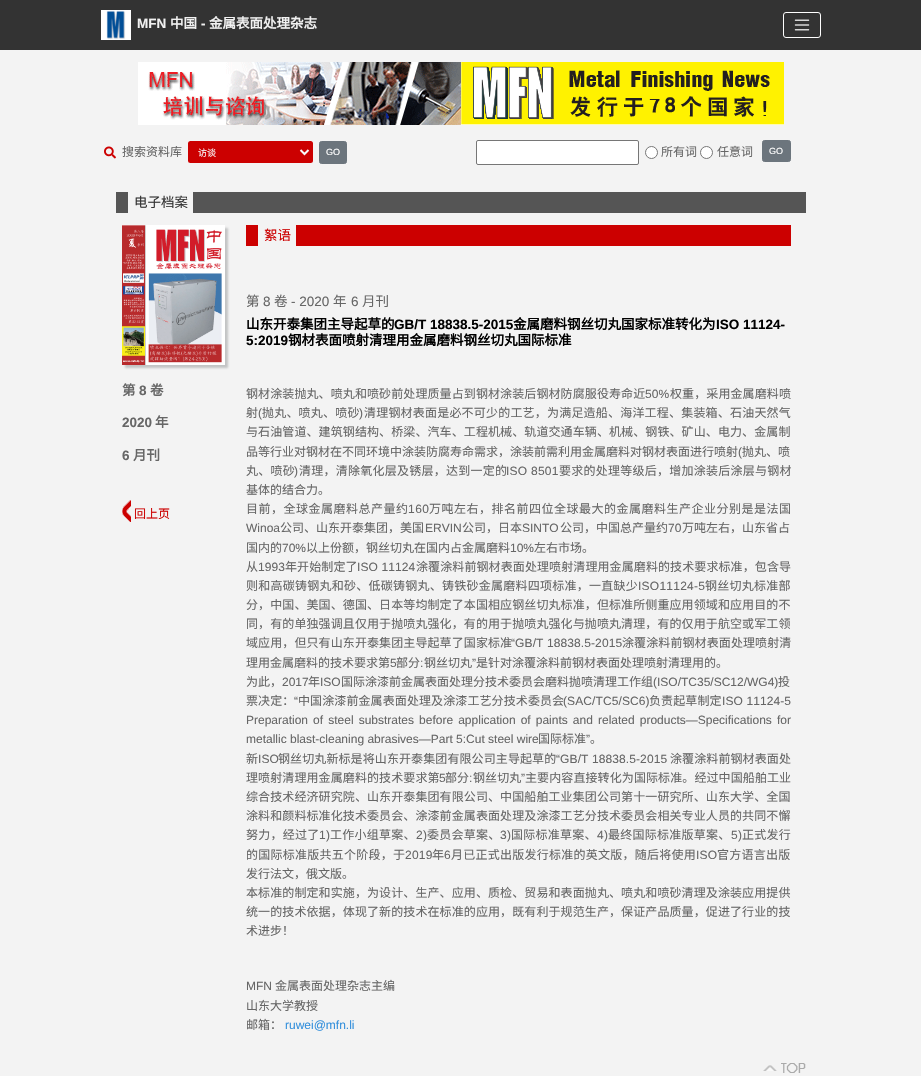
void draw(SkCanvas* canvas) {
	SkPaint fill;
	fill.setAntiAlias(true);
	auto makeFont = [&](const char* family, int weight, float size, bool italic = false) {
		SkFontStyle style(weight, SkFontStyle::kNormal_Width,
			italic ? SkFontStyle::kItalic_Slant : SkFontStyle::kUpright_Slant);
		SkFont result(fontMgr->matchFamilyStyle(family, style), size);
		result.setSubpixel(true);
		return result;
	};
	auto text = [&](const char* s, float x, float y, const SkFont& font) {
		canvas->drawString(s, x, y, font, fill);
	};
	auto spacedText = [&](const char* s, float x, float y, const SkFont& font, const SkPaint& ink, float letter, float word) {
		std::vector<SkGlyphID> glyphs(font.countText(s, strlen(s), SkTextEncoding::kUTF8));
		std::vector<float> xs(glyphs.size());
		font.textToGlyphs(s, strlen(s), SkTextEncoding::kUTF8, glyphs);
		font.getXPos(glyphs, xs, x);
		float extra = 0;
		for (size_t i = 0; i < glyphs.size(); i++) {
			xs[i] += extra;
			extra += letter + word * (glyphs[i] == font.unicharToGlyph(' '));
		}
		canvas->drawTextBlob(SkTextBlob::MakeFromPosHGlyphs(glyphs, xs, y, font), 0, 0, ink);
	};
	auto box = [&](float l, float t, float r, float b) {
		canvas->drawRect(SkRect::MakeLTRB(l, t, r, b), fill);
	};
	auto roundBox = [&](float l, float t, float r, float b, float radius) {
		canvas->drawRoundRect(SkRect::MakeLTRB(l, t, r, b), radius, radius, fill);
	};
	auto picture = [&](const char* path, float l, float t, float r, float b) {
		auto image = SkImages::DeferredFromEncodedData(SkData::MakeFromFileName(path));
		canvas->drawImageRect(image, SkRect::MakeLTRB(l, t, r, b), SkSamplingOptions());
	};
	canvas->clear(0xFFF3F3F3);
	fill.setColor(0xFF333333);
	box(0, 0, 921, 50);
	picture("image0.png", 101, 10, 131, 40);
	fill.setStyle(SkPaint::kStroke_Style);
	fill.setStrokeWidth(1);
	fill.setColor(0xFFFFFFFF);
	canvas->drawRoundRect(SkRect::MakeLTRB(783.5f, 12.5f, 820.5f, 37.5f), 2.5f, 2.5f, fill);
	picture("image1.png", 794, 19, 810, 31);
	picture("image2.png", 138, 62, 461, 125);
	picture("image3.png", 461, 62, 784, 125);
	picture("image4.png", 104, 146, 116, 159);
	fill.setStyle(SkPaint::kFill_Style);
	fill.setColor(0xFFCC0000);
	roundBox(188, 141, 313, 163, 2.5f);
	fill.setStyle(SkPaint::kStroke_Style);
	fill.setStrokeWidth(2);
	fill.setColor(0xFFF8F9FA);
	canvas->drawPath(SkPathBuilder().moveTo(300.5f, 150).lineTo(304.5f, 154).lineTo(308.5f, 150).detach(), fill);
	fill.setStyle(SkPaint::kFill_Style);
	fill.setColor(0xFF6C757D);
	canvas->drawRoundRect(SkRect::MakeLTRB(319.5f, 141.5f, 346.5f, 163.5f), 2, 2, fill);
	fill.setStyle(SkPaint::kStroke_Style);
	fill.setStrokeWidth(1);
	canvas->drawRoundRect(SkRect::MakeLTRB(319.5f, 141.5f, 346.5f, 163.5f), 2, 2, fill);
	fill.setStyle(SkPaint::kFill_Style);
	fill.setColor(0xFFFFFFFF);
	canvas->drawRoundRect(SkRect::MakeLTRB(476.5f, 140.5f, 638.5f, 164.5f), 1.5f, 1.5f, fill);
	fill.setStyle(SkPaint::kStroke_Style);
	fill.setColor(0xFF767676);
	canvas->drawRoundRect(SkRect::MakeLTRB(476.5f, 140.5f, 638.5f, 164.5f), 1.5f, 1.5f, fill);
	fill.setStyle(SkPaint::kFill_Style);
	fill.setColor(0xFFFFFFFF);
	canvas->drawCircle(651.5f, 152.5f, 6, fill);
	fill.setStyle(SkPaint::kStroke_Style);
	fill.setColor(0xFF767676);
	canvas->drawCircle(651.5f, 152.5f, 6, fill);
	fill.setStyle(SkPaint::kFill_Style);
	fill.setColor(0xFFFFFFFF);
	canvas->drawCircle(706.5f, 152.5f, 6, fill);
	fill.setStyle(SkPaint::kStroke_Style);
	fill.setColor(0xFF767676);
	canvas->drawCircle(706.5f, 152.5f, 6, fill);
	fill.setStyle(SkPaint::kFill_Style);
	fill.setColor(0xFF6C757D);
	canvas->drawRoundRect(SkRect::MakeLTRB(762.5f, 140.5f, 790.5f, 161.5f), 2, 2, fill);
	fill.setStyle(SkPaint::kStroke_Style);
	canvas->drawRoundRect(SkRect::MakeLTRB(762.5f, 140.5f, 790.5f, 161.5f), 2, 2, fill);
	fill.setStyle(SkPaint::kFill_Style);
	fill.setColor(0xFF555555);
	box(116, 192, 806, 213);
	fill.setColor(0xFFF3F3F3);
	box(128, 192, 193, 213);
	fill.setColor(0x4033373A);
	fill.setMaskFilter(SkMaskFilter::MakeBlur(kNormal_SkBlurStyle, 1));
	canvas->drawRect(SkRect::MakeLTRB(125, 228, 228, 368), fill);
	fill.setMaskFilter(nullptr);
	picture("image5.png", 122, 225, 225, 365);
	fill.setColor(0xFFCC0000);
	box(122, 500, 131, 522);
	picture("image6.png", 122, 500, 131, 523);
	box(246, 225, 791, 246);
	fill.setColor(0xFFF3F3F3);
	box(258, 225, 296, 246);
	picture("image7.png", 763, 1063, 806, 1073);
	auto font1 = makeFont("Liberation Sans", 700, 13.5f);
	fill.setColor(0xFFF1F1F1);
	text("MFN", 137, 28, font1);
	auto font2 = makeFont("Noto Sans CJK SC", 700, 13.5f);
	text("中国", 170, 28, font2);
	text("-", 201, 28, font1);
	text("金属表面处理杂志", 209, 28, font2);
	auto font3 = makeFont("Noto Sans CJK SC", 400, 12);
	fill.setColor(0xFF666666);
	text("搜索资料库", 122, 156, font3);
	auto font4 = makeFont("Noto Sans CJK SC", 400, 9);
	fill.setColor(0xFFF8F9FA);
	text("访谈", 198, 156, font4);
	auto font5 = makeFont("Liberation Sans", 400, 9);
	fill.setColor(0xFFFFFFFF);
	text("GO", 326, 155, font5);
	fill.setColor(0xFF666666);
	text("所有词", 661, 156, font3);
	text("任意词", 717, 156, font3);
	fill.setColor(0xFFFFFFFF);
	text("GO", 769, 154, font5);
	auto font6 = makeFont("Noto Sans CJK SC", 400, 13.5f);
	fill.setColor(0xFF333333);
	text("电子档案", 134, 207, font6);
	fill.setColor(0xFF666666);
	text("第", 122, 395, font2);
	text("8", 139, 395, font1);
	text("卷", 150, 395, font2);
	text("2020", 122, 427, font1);
	text("年", 155, 427, font2);
	text("6", 122, 460, font1);
	text("月刊", 133, 460, font2);
	fill.setColor(0xFFCC0000);
	text("回上页", 134, 518, font3);
	text("絮语", 264, 240, font6);
	fill.setColor(0xFF666666);
	text("第", 246, 306, font6);
	auto font7 = makeFont("Liberation Sans", 400, 13.5f);
	text("8", 263, 306, font7);
	text("卷", 274, 306, font6);
	text("- 2020", 291, 306, font7);
	text("年", 333, 306, font6);
	text("6", 351, 306, font7);
	text("月刊", 362, 306, font6);
	fill.setColor(0xFF000000);
	text("山东开泰集团主导起草的", 246, 329, font2);
	text("GB/T 18838.5-2015", 394, 329, font1);
	text("金属磨料钢丝切丸国家标准转化为", 513, 329, font2);
	text("ISO 11124-", 716, 329, font1);
	text("5:2019", 246, 345, font1);
	text("钢材表面喷射清理用金属磨料钢丝切丸国际标准", 288, 345, font2);
	fill.setColor(0xFF666666);
	spacedText("钢材涂装抛丸、喷丸和喷砂前处理质量占到钢材涂装后钢材防腐服役寿命近", 246, 398, font3, fill, 0.1f, 0);
	auto font8 = makeFont("Liberation Sans", 400, 12);
	spacedText("50%", 645, 398, font8, fill, 0.1f, 0);
	spacedText("权重，采用金属磨料喷", 670, 398, font3, fill, 0.1f, 0);
	spacedText("射", 246, 417, font3, fill, 0.2f, 0);
	spacedText("(", 258, 417, font8, fill, 0.2f, 0);
	spacedText("抛丸、喷丸、喷砂", 262, 417, font3, fill, 0.2f, 0);
	spacedText(")", 359, 417, font8, fill, 0.2f, 0);
	spacedText("清理钢材表面是必不可少的工艺，为满足造船、海洋工程、集装箱、石油天然气", 364, 417, font3, fill, 0.2f, 0);
	spacedText("与石油管道、建筑钢结构、桥梁、汽车、工程机械、轨道交通车辆、机械、钢铁、矿山、电力、金属制", 246, 436, font3, fill, 0.1f, 0);
	text("品等行业对钢材在不同环境中涂装防腐寿命需求，涂装前需利用金属磨料对钢材表面进行喷射", 246, 456, font3);
	text("(", 738, 456, font8);
	text("抛丸、喷", 742, 456, font3);
	spacedText("丸、喷砂", 246, 475, font3, fill, 0.25f, 0);
	spacedText(")", 294, 475, font8, fill, 0.25f, 0);
	spacedText("清理，清除氧化层及锈层，达到一定的", 299, 475, font3, fill, 0.25f, 0);
	spacedText("ISO 8501", 506, 475, font8, fill, 0.25f, 0);
	spacedText("要求的处理等级后，增加涂装后涂层与钢材", 559, 475, font3, fill, 0.25f, 0);
	text("基体的结合力。", 246, 494, font3);
	spacedText("目前，全球金属磨料总产量约", 246, 513, font3, fill, 0.5f, 0);
	spacedText("160", 408, 513, font8, fill, 0.5f, 0);
	spacedText("万吨左右，排名前四位全球最大的金属磨料生产企业分别是是法国", 429, 513, font3, fill, 0.5f, 0);
	text("Winoa", 246, 532, font8);
	text("公司、山东开泰集团，美国", 280, 532, font3);
	text("ERVIN", 425, 532, font8);
	text("公司，日本", 462, 532, font3);
	text("SINTO", 522, 532, font8);
	text("公司，中国总产量约", 560, 532, font3);
	text("70", 668, 532, font8);
	text("万吨左右，山东省占", 682, 532, font3);
	text("国内的", 246, 552, font3);
	text("70%", 282, 552, font8);
	text("以上份额，钢丝切丸在国内占金属磨料", 306, 552, font3);
	text("10%", 510, 552, font8);
	text("左右市场。", 534, 552, font3);
	spacedText("从", 246, 571, font3, fill, 0.1f, 0);
	spacedText("1993", 258, 571, font8, fill, 0.1f, 0);
	spacedText("年开始制定了", 285, 571, font3, fill, 0.1f, 0);
	spacedText("ISO 11124", 357, 571, font8, fill, 0.1f, 0);
	spacedText("涂覆涂料前钢材表面处理喷射清理用金属磨料的技术要求标准，包含导", 416, 571, font3, fill, 0.1f, 0);
	spacedText("则和高碳铸钢丸和砂、低碳铸钢丸、铸铁砂金属磨料四项标准，一直缺少", 246, 590, font3, fill, 0.25f, 0);
	spacedText("ISO11124-5", 638, 590, font8, fill, 0.25f, 0);
	spacedText("钢丝切丸标准部", 705, 590, font3, fill, 0.25f, 0);
	spacedText("分，中国、美国、德国、日本等均制定了本国相应钢丝切丸标准，但标准所侧重应用领域和应用目的不", 246, 609, font3, fill, 0.1f, 0);
	spacedText("同，有的单独强调且仅用于抛喷丸强化，有的用于抛喷丸强化与抛喷丸清理，有的仅用于航空或军工领", 246, 628, font3, fill, 0.1f, 0);
	spacedText("域应用，但只有山东开泰集团主导起草了国家标准", 246, 647, font3, fill, 0.1f, 0);
	spacedText("“GB/T 18838.5-2015", 511, 647, font8, fill, 0.1f, 0);
	spacedText("涂覆涂料前钢材表面处理喷射清", 622, 647, font3, fill, 0.1f, 0);
	text("理用金属磨料的技术要求第", 246, 667, font3);
	text("5", 390, 667, font8);
	text("部分", 396, 667, font3);
	text(":", 420, 667, font8);
	text("钢丝切丸", 424, 667, font3);
	text("”", 472, 667, font8);
	text("是针对涂覆涂料前钢材表面处理喷射清理用的。", 476, 667, font3);
	text("为此，", 246, 686, font3);
	text("2017", 282, 686, font8);
	text("年", 308, 686, font3);
	text("ISO", 320, 686, font8);
	text("国际涂漆前金属表面处理分技术委员会磨料抛喷清理工作组", 341, 686, font3);
	text("(ISO/TC35/SC12/WG4)", 653, 686, font8);
	text("投", 778, 686, font3);
	spacedText("票决定：", 246, 705, font3, fill, 0.1f, 0);
	spacedText("“", 294, 705, font8, fill, 0.1f, 0);
	spacedText("中国涂漆前金属表面处理及涂漆工艺分技术委员会", 298, 705, font3, fill, 0.1f, 0);
	spacedText("(SAC/TC5/SC6)", 563, 705, font8, fill, 0.1f, 0);
	spacedText("负责起草制定", 649, 705, font3, fill, 0.1f, 0);
	spacedText("ISO 11124-5", 722, 705, font8, fill, 0.1f, 0);
	spacedText("Preparation of steel substrates before application of paints and related products—Specifications for", 246, 724, font8, fill, 0, 1.75f);
	text("metallic blast-cleaning abrasives—Part 5:Cut steel wire", 246, 743, font8);
	text("国际标准", 538, 743, font3);
	text("”", 586, 743, font8);
	text("。", 590, 743, font3);
	spacedText("新", 246, 763, font3, fill, 0.1f, 0);
	spacedText("ISO", 258, 763, font8, fill, 0.1f, 0);
	spacedText("钢丝切丸新标是将山东开泰集团有限公司主导起草的", 278, 763, font3, fill, 0.1f, 0);
	spacedText("“GB/T 18838.5-2015", 556, 763, font8, fill, 0.1f, 0);
	spacedText("涂覆涂料前钢材表面处", 670, 763, font3, fill, 0.1f, 0);
	spacedText("理喷射清理用金属磨料的技术要求第", 246, 782, font3, fill, 0.1f, 0);
	spacedText("5", 439, 782, font8, fill, 0.1f, 0);
	spacedText("部分", 445, 782, font3, fill, 0.1f, 0);
	spacedText(":", 469, 782, font8, fill, 0.1f, 0);
	spacedText("钢丝切丸", 473, 782, font3, fill, 0.1f, 0);
	spacedText("”", 521, 782, font8, fill, 0.1f, 0);
	spacedText("主要内容直接转化为国际标准。经过中国船舶工业", 525, 782, font3, fill, 0.1f, 0);
	spacedText("综合技术经济研究院、山东开泰集团有限公司、中国船舶工业集团公司第十一研究所、山东大学、全国", 246, 801, font3, fill, 0.1f, 0);
	spacedText("涂料和颜料标准化技术委员会、涂漆前金属表面处理及涂漆工艺分技术委员会相关专业人员的共同不懈", 246, 820, font3, fill, 0.1f, 0);
	spacedText("努力，经过了", 246, 839, font3, fill, 0.25f, 0);
	spacedText("1)", 319, 839, font8, fill, 0.25f, 0);
	spacedText("工作小组草案、", 330, 839, font3, fill, 0.25f, 0);
	spacedText("2)", 416, 839, font8, fill, 0.25f, 0);
	spacedText("委员会草案、", 427, 839, font3, fill, 0.25f, 0);
	spacedText("3)", 500, 839, font8, fill, 0.25f, 0);
	spacedText("国际标准草案、", 511, 839, font3, fill, 0.25f, 0);
	spacedText("4)", 597, 839, font8, fill, 0.25f, 0);
	spacedText("最终国际标准版草案、", 608, 839, font3, fill, 0.25f, 0);
	spacedText("5)", 731, 839, font8, fill, 0.25f, 0);
	spacedText("正式发行", 742, 839, font3, fill, 0.25f, 0);
	spacedText("的国际标准版共五个阶段，于", 246, 859, font3, fill, 0.25f, 0);
	spacedText("2019", 405, 859, font8, fill, 0.25f, 0);
	spacedText("年", 432, 859, font3, fill, 0.25f, 0);
	spacedText("6", 444, 859, font8, fill, 0.25f, 0);
	spacedText("月已正式出版发行标准的英文版，随后将使用", 451, 859, font3, fill, 0.25f, 0);
	spacedText("ISO", 696, 859, font8, fill, 0.25f, 0);
	spacedText("官方语言出版", 717, 859, font3, fill, 0.25f, 0);
	text("发行法文，俄文版。", 246, 878, font3);
	spacedText("本标准的制定和实施，为设计、生产、应用、质检、贸易和表面抛丸、喷丸和喷砂清理及涂装应用提供", 246, 897, font3, fill, 0.1f, 0);
	spacedText("统一的技术依据，体现了新的技术在标准的应用，既有利于规范生产，保证产品质量，促进了行业的技", 246, 916, font3, fill, 0.1f, 0);
	text("术进步！", 246, 935, font3);
	text("MFN", 246, 990, font8);
	text("金属表面处理杂志主编", 275, 990, font3);
	text("山东大学教授", 246, 1010, font3);
	text("邮箱：", 246, 1029, font3);
	fill.setColor(0xFF3490DC);
	text("ruwei@mfn.li", 285, 1029, font8);
}
